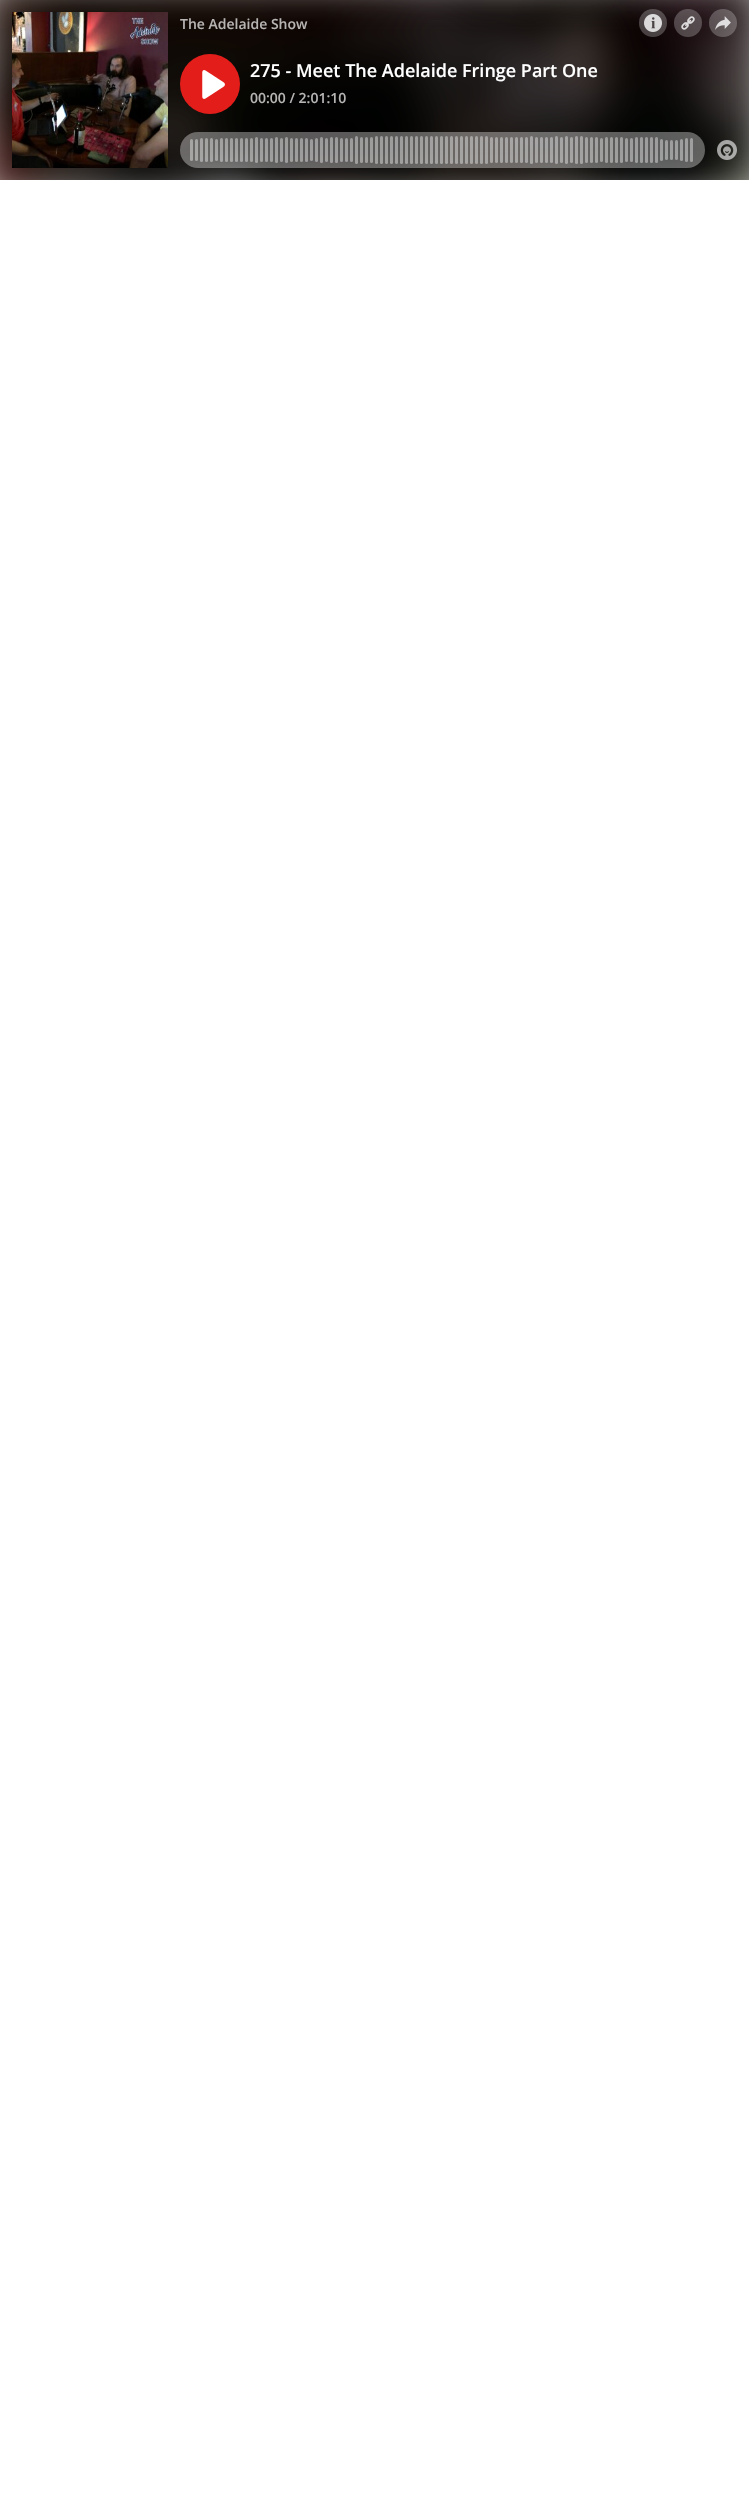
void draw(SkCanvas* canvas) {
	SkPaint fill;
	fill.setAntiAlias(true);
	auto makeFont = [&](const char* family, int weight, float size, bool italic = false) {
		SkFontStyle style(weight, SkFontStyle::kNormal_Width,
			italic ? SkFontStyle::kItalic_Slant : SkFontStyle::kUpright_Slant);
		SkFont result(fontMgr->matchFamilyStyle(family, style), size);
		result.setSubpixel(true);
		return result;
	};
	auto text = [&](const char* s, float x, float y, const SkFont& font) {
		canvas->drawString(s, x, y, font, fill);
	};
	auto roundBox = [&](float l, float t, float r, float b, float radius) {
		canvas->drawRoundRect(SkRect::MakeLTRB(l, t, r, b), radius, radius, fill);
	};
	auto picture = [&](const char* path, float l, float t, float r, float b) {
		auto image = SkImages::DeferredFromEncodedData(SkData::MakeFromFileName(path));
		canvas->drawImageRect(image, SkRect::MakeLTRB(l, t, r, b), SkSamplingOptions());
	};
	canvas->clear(0xFFFFFFFF);
	picture("image0.png", 0, 0, 749, 180);
	picture("image1.png", 12, 12, 168, 168);
	fill.setColor(0x3DFFFFFF);
	canvas->drawCircle(653, 23, 14, fill);
	picture("image2.png", 644, 14, 662, 32);
	canvas->drawCircle(688, 23, 14, fill);
	picture("image3.png", 681, 16, 695, 30);
	canvas->drawCircle(723, 23, 14, fill);
	picture("image4.png", 715, 16, 731, 30);
	fill.setColor(0xFFE31D1A);
	canvas->drawCircle(210, 84, 30, fill);
	picture("image5.png", 202, 70, 225, 99);
	fill.setColor(0x59FFFFFF);
	roundBox(180, 132, 705, 168, 18);
	picture("image6.png", 190, 136, 693, 164);
	picture("image7.png", 717, 140, 737, 160);
	auto font1 = makeFont("Open Sans", 600, 14);
	fill.setColor(0xFFB7B5B4);
	text("The Adelaide Show", 180, 29, font1);
	auto font2 = makeFont("Open Sans", 600, 18);
	fill.setColor(0xFFFFFFFF);
	text("275 - Meet The Adelaide Fringe Part One", 250, 77, font2);
	fill.setColor(0xFFB7B5B4);
	text("00:00 / 2:01:10", 250, 103, font1);
}
